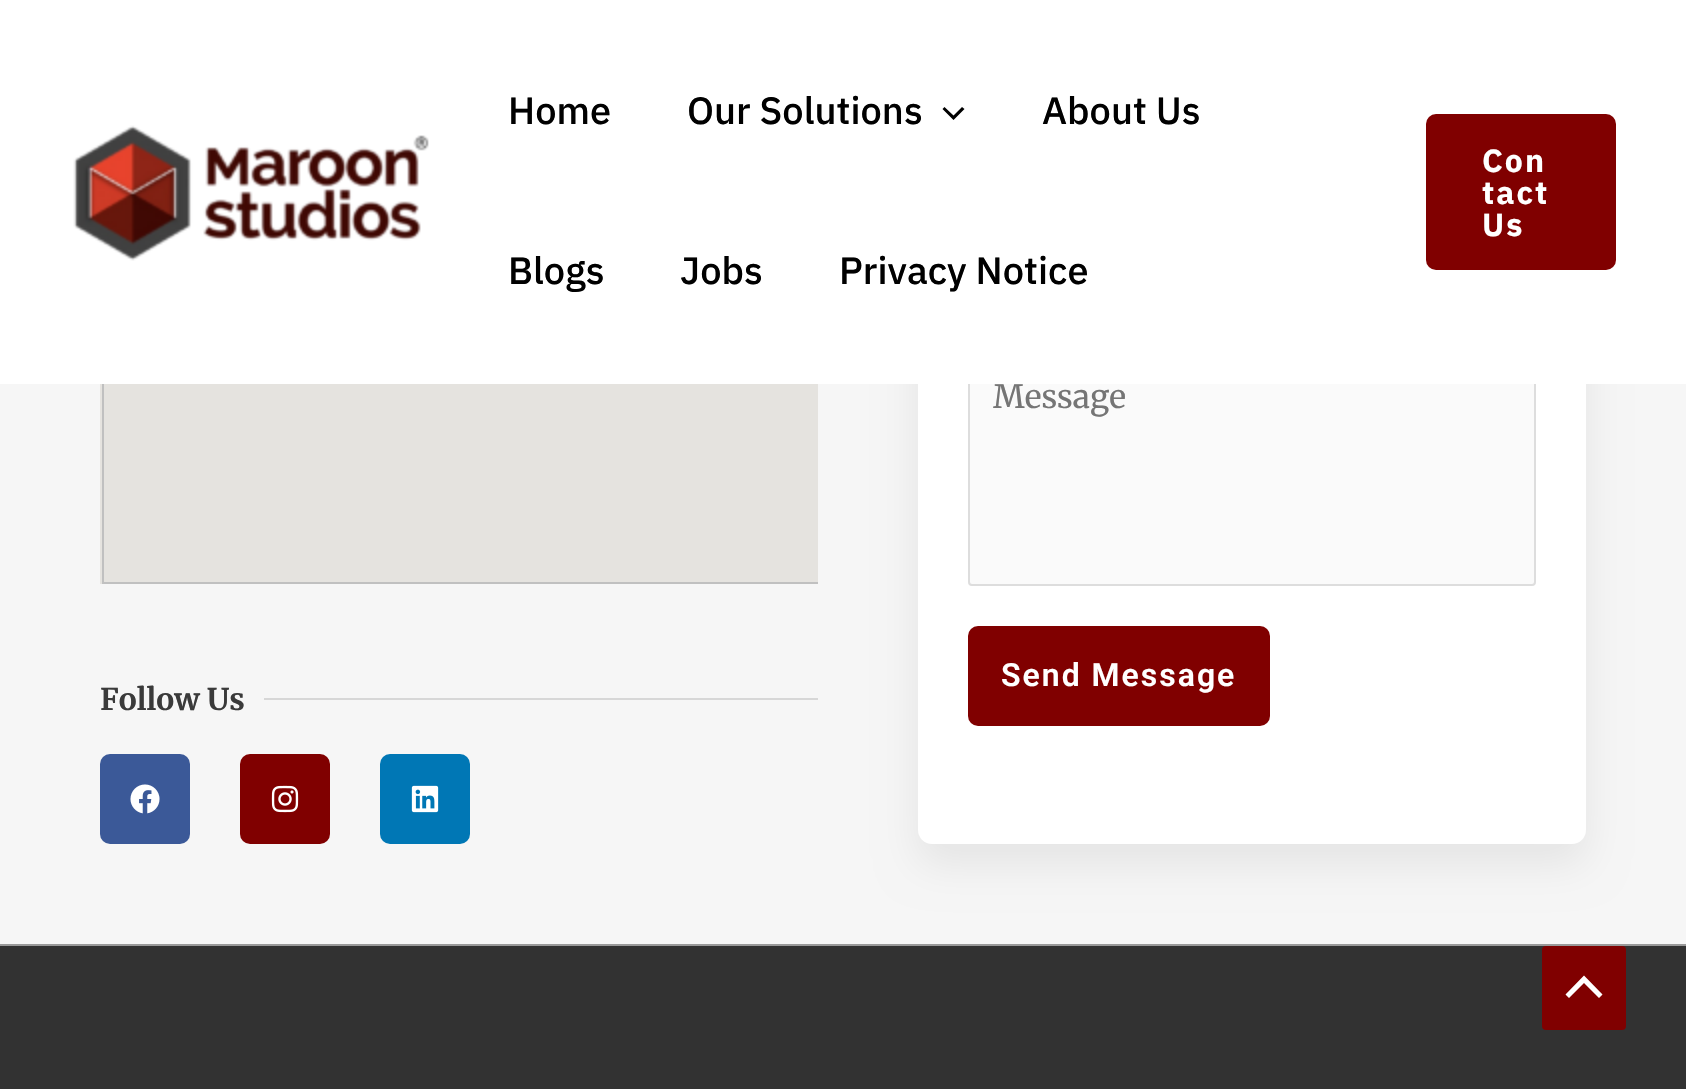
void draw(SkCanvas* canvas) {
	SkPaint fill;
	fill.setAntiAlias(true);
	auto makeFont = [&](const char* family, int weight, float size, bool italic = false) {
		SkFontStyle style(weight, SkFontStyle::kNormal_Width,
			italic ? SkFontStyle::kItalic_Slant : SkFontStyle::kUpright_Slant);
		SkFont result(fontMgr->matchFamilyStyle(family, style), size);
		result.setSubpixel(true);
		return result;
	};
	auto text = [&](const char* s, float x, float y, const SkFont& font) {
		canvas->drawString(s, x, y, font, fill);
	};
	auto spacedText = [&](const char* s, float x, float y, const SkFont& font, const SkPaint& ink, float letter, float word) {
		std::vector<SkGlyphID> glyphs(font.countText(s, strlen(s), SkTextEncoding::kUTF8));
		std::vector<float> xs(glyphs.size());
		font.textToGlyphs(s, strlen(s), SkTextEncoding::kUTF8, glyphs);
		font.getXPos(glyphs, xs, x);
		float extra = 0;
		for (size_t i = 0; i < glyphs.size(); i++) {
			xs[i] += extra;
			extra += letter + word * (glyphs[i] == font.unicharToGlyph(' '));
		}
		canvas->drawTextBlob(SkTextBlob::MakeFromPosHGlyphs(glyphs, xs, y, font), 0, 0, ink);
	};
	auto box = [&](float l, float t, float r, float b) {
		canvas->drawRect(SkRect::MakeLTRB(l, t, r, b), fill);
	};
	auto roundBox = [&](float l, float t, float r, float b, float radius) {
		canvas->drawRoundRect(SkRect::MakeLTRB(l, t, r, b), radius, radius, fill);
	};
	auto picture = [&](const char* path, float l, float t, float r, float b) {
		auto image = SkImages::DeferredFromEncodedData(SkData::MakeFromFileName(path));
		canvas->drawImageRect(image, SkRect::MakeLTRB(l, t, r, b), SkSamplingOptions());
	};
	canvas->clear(0xFF323232);
	fill.setColor(0xFFF6F6F6);
	box(0, 384, 1686, 944);
	fill.setColor(0x12000000);
	fill.setMaskFilter(SkMaskFilter::MakeBlur(kNormal_SkBlurStyle, 20));
	canvas->drawRoundRect(SkRect::MakeLTRB(918, -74, 1586, 864), 14, 14, fill);
	fill.setMaskFilter(nullptr);
	fill.setColor(0xFFFFFFFF);
	roundBox(918, -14, 1586, 844, 14);
	fill.setColor(0xFFFAFAFA);
	canvas->drawRoundRect(SkRect::MakeLTRB(969, 347, 1535, 585), 3, 3, fill);
	fill.setStyle(SkPaint::kStroke_Style);
	fill.setStrokeWidth(2);
	fill.setColor(0xFFDDDDDD);
	canvas->drawRoundRect(SkRect::MakeLTRB(969, 347, 1535, 585), 3, 3, fill);
	fill.setStyle(SkPaint::kFill_Style);
	fill.setColor(0xFFFFFFFF);
	box(0, 0, 1686, 384);
	picture("image0.png", 73, 125, 429, 261);
	fill.setColor(0xFF000000);
	canvas->drawPath(SkPathBuilder().moveTo(942.5f, 109).lineTo(953.5f, 120).lineTo(964.5f, 109).lineTo(962, 107).lineTo(953.5f, 115.5f).lineTo(944.5f, 107).close().detach(), fill);
	fill.setColor(0xFF800000);
	roundBox(1426, 114, 1616, 270, 10);
	roundBox(968, 626, 1270, 726, 10);
	picture("image1.png", 100, 384, 818, 584);
	fill.setColor(0xFFD7D7D7);
	box(264, 698, 818, 700);
	fill.setColor(0xFF3B5998);
	roundBox(100, 754, 190, 844, 10);
	picture("image2.png", 130, 784, 160, 814);
	fill.setColor(0xFF800000);
	roundBox(240, 754, 330, 844, 10);
	picture("image3.png", 271, 785, 299, 813);
	fill.setColor(0xFF0077B5);
	roundBox(380, 754, 470, 844, 10);
	picture("image4.png", 411, 785, 439, 813);
	fill.setColor(0xFF999999);
	box(0, 944, 1686, 946);
	fill.setColor(0xFF800000);
	roundBox(1542, 946, 1626, 1030, 4);
	fill.setColor(0xFFFFFFFF);
	canvas->drawPath(SkPathBuilder().moveTo(1602.5f, 994.5f).lineTo(1584, 975.5f).lineTo(1565.5f, 994.5f).lineTo(1569, 998).lineTo(1584, 983).lineTo(1599, 998).close().detach(), fill);
	auto font1 = makeFont("IBM Plex Sans", 500, 38);
	fill.setColor(0xFF000000);
	text("Home", 508, 124, font1);
	text("Our Solutions", 687, 124, font1);
	text("About Us", 1042, 124, font1);
	text("Blogs", 508, 284, font1);
	text("Jobs", 680, 284, font1);
	text("Privacy Notice", 839, 284, font1);
	auto font2 = makeFont("IBM Plex Sans", 700, 32);
	fill.setColor(0xFFFFFFFF);
	spacedText("Con", 1482, 172, font2, fill, 2, 0);
	spacedText("tact", 1482, 204, font2, fill, 2, 0);
	spacedText("Us", 1482, 236, font2, fill, 2, 0);
	auto font3 = makeFont("Merriweather", 400, 32);
	fill.setColor(0xFF757575);
	text("Message", 993, 408, font3);
	auto font4 = makeFont("Roboto", 600, 32);
	fill.setColor(0xFFFFFFFF);
	spacedText("Send Message", 1001, 686, font4, fill, 2, 0);
	auto font5 = makeFont("Merriweather", 700, 30);
	fill.setColor(0xFF3A3A3A);
	text("Follow Us", 100, 710, font5);
}
